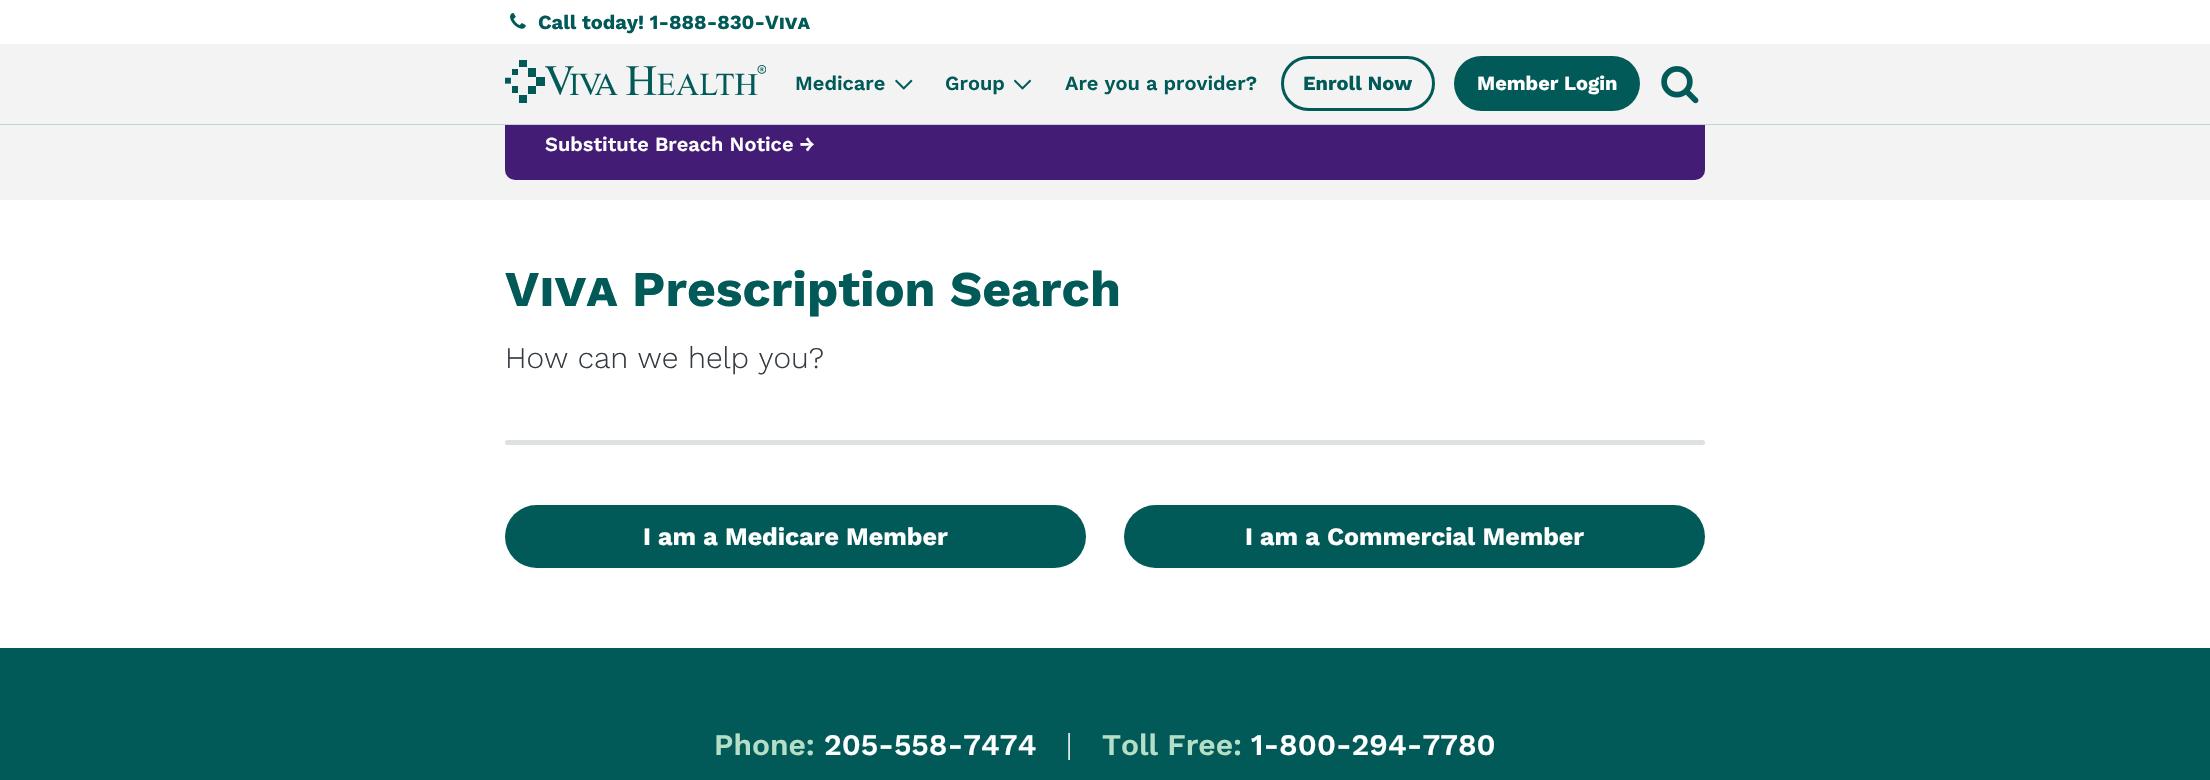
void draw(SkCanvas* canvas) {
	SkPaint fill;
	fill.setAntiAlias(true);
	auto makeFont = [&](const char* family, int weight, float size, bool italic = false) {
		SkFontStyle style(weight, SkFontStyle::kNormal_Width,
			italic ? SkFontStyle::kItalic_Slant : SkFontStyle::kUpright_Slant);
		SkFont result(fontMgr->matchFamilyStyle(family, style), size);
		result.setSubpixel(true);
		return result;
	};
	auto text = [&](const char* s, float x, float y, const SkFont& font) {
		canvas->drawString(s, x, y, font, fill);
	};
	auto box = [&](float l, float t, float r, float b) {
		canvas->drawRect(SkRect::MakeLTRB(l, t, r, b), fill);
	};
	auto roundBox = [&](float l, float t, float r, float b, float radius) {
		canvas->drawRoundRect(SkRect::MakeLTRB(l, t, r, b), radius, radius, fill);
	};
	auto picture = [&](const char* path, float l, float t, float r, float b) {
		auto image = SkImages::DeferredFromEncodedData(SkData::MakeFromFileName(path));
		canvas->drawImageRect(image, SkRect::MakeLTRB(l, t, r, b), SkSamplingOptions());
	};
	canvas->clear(0xFFFFFFFF);
	picture("image0.png", 510, 13, 526, 29);
	fill.setColor(0xFFF3F3F3);
	box(0, 125, 2210, 200);
	fill.setColor(0xFF431C75);
	roundBox(505, 110, 1705, 180, 10);
	fill.setColor(0xFFF3F3F3);
	box(0, 44, 2210, 124);
	fill.setColor(0xFFC3D4D4);
	box(0, 124, 2210, 125);
	picture("image1.png", 505, 60, 766, 103);
	picture("image2.png", 895, 79, 913, 90);
	picture("image3.png", 1013, 79, 1032, 90);
	fill.setStyle(SkPaint::kStroke_Style);
	fill.setStrokeWidth(3);
	fill.setColor(0xFF015A58);
	canvas->drawRoundRect(SkRect::MakeLTRB(1282.5f, 57.5f, 1433.5f, 109.5f), 26, 26, fill);
	fill.setStyle(SkPaint::kFill_Style);
	roundBox(1454, 56, 1640, 111, 27.5f);
	picture("image4.png", 1661, 66, 1699, 104);
	fill.setColor(0xFFDDE2DF);
	roundBox(505, 440, 1705, 445, 2.5f);
	fill.setColor(0xFF015A58);
	roundBox(505, 505, 1086, 568, 31.5f);
	roundBox(1124, 505, 1705, 568, 31.5f);
	box(0, 648, 2210, 780);
	auto font1 = makeFont("Work Sans", 700, 20);
	text("Call today! 1-888-830-", 538, 29, font1);
	auto font2 = makeFont("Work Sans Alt", 700, 20);
	text("Viva", 765, 29, font2);
	auto font3 = makeFont("Work Sans", 600, 20);
	text("Medicare", 795, 90, font3);
	text("Group", 945, 90, font3);
	text("Are you a provider?", 1065, 90, font3);
	text("Enroll Now", 1303, 90, font1);
	fill.setColor(0xFFFFFFFF);
	text("Member Login", 1477, 90, font1);
	text("Substitute Breach Notice →", 545, 151, font3);
	auto font4 = makeFont("Work Sans Alt", 700, 50);
	fill.setColor(0xFF015A58);
	text("Viva", 505, 306, font4);
	auto font5 = makeFont("Work Sans", 700, 50);
	text("Prescription Search", 632, 306, font5);
	auto font6 = makeFont("Work Sans", 300, 30);
	fill.setColor(0xFF343A40);
	text("How can we help you?", 505, 368, font6);
	auto font7 = makeFont("Work Sans", 700, 25);
	fill.setColor(0xFFFFFFFF);
	text("I am a Medicare Member", 643, 545, font7);
	text("I am a Commercial Member", 1245, 545, font7);
	auto font8 = makeFont("Work Sans", 600, 30);
	fill.setColor(0xFFB5DEC8);
	text("Phone:", 714, 755, font8);
	fill.setColor(0xFFFFFFFF);
	text("205-558-7474", 824, 755, font8);
	text("|", 1066, 755, font6);
	fill.setColor(0xFFB5DEC8);
	text("Toll Free:", 1102, 755, font8);
	fill.setColor(0xFFFFFFFF);
	text("1-800-294-7780", 1251, 755, font8);
}
